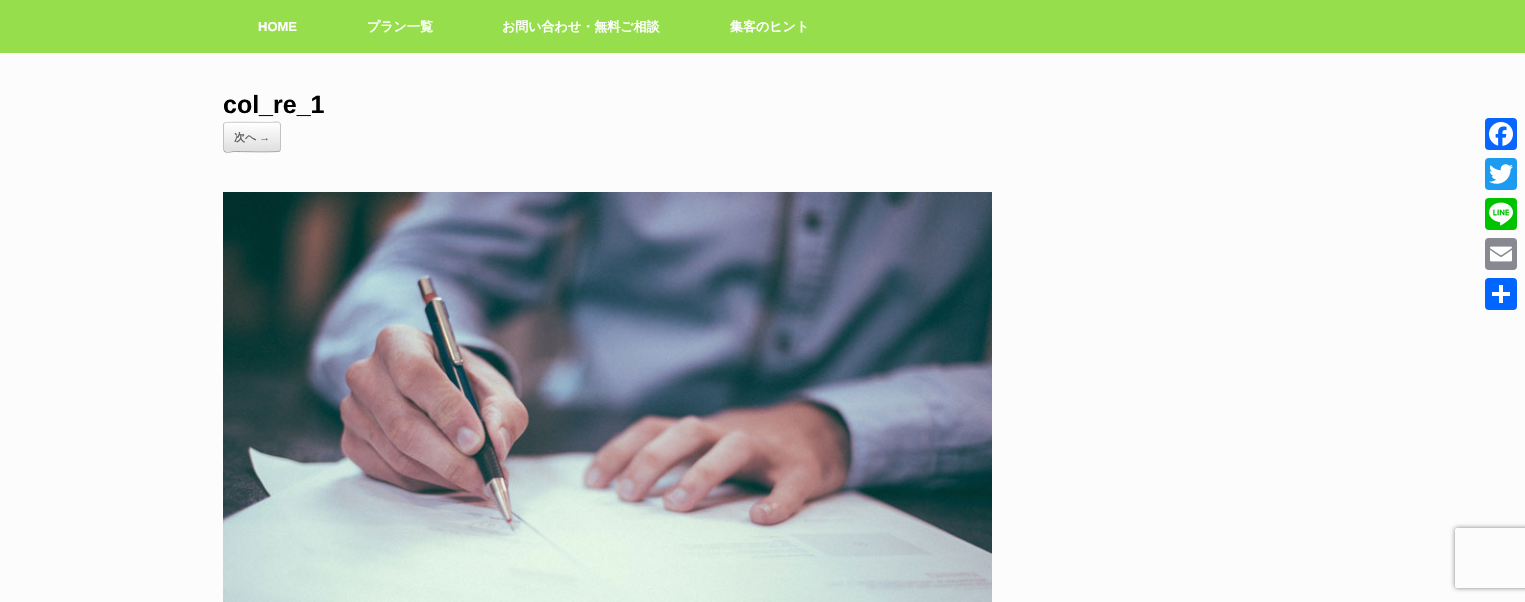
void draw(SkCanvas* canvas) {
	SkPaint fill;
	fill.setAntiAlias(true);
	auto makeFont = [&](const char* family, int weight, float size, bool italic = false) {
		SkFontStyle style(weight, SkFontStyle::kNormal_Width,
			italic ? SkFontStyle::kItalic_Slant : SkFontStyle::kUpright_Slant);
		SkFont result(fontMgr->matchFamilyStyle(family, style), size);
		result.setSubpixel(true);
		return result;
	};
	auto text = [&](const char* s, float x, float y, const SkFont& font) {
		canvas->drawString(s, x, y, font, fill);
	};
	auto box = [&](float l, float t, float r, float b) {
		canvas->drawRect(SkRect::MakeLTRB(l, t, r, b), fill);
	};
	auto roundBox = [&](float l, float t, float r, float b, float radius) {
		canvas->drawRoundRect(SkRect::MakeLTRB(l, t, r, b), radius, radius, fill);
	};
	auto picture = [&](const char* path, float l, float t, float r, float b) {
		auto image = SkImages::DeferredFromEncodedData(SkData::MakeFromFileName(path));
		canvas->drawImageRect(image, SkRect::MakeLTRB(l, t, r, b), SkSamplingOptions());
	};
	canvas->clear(0xFFFCFCFC);
	fill.setColor(0xFF97DE4C);
	box(0, 0, 1525, 53);
	canvas->save();
	canvas->clipPath(SkPathBuilder().moveTo(226, 122).lineTo(278, 122).cubicTo(279.5f, 122, 281, 123.5f, 281, 125).lineTo(281, 149).cubicTo(281, 150.5f, 279.5f, 152, 278, 152).lineTo(226, 152).cubicTo(224.5f, 152, 223, 150.5f, 223, 149).lineTo(223, 125).cubicTo(223, 123.5f, 224.5f, 122, 226, 122).close().detach(), true);
	{
		const SkColor colors[] = {0xFFDFDFDF, 0xFFFFFFFF};
		const float stops[] = {0, 1};
		const SkPoint ends[] = {{224, 123}, {224, 95}};
		fill.setShader(SkGradientShader::MakeLinear(ends, colors, stops, 2, SkTileMode::kClamp));
		fill.setAlpha(255);
	}
	box(223, 122, 281, 123);
	{
		const SkColor colors[] = {0xFFDFDFDF, 0xFFFFFFFF};
		const float stops[] = {0, 1};
		const SkPoint ends[] = {{224, 151}, {224, 123}};
		fill.setShader(SkGradientShader::MakeLinear(ends, colors, stops, 2, SkTileMode::kClamp));
		fill.setAlpha(255);
	}
	box(223, 123, 281, 151);
	canvas->restore();
	fill.setStyle(SkPaint::kStroke_Style);
	fill.setStrokeWidth(1);
	fill.setShader(nullptr);
	fill.setColor(0xFFD2D2D2);
	canvas->drawPath(SkPathBuilder().moveTo(224, 123).cubicTo(226, 121.5f, 264, 122.5f, 269.5f, 122.5f).cubicTo(273, 122.5f, 277.5f, 120.5f, 280, 123).detach(), fill);
	fill.setColor(0xFFC3C3C3);
	canvas->drawPath(SkPathBuilder().moveTo(280, 123).cubicTo(280, 123.5f, 280.5f, 124.5f, 280.5f, 125).lineTo(280.5f, 149).cubicTo(280.5f, 149.5f, 280, 150.5f, 280, 151).detach(), fill);
	fill.setColor(0xFF9F9F9F);
	canvas->drawPath(SkPathBuilder().moveTo(280, 151).cubicTo(278, 152.5f, 240, 151.5f, 234.5f, 151.5f).cubicTo(231, 151.5f, 226.5f, 153.5f, 224, 151).detach(), fill);
	fill.setColor(0xFFC3C3C3);
	canvas->drawPath(SkPathBuilder().moveTo(224, 151).cubicTo(224, 150.5f, 223.5f, 149.5f, 223.5f, 149).lineTo(223.5f, 125).cubicTo(223.5f, 124.5f, 224, 123.5f, 224, 123).detach(), fill);
	picture("image0.png", 223, 192, 992, 602);
	fill.setStyle(SkPaint::kFill_Style);
	fill.setColor(0xFF0866FF);
	roundBox(1485, 118, 1517, 150, 4);
	picture("image1.png", 1489, 122, 1513, 146);
	fill.setColor(0xFF1D9BF0);
	roundBox(1485, 158, 1517, 190, 4);
	picture("image2.png", 1489, 164, 1513, 184);
	fill.setColor(0xFF00C300);
	roundBox(1485, 198, 1517, 230, 4);
	picture("image3.png", 1489, 202, 1513, 226);
	fill.setColor(0xFF888990);
	roundBox(1485, 238, 1517, 270, 4);
	picture("image4.png", 1490, 246, 1512, 262);
	fill.setColor(0xFF0166FF);
	roundBox(1485, 278, 1517, 310, 4);
	fill.setColor(0xFFFFFFFF);
	box(1499, 285, 1503, 303);
	box(1492, 292, 1510, 296);
	canvas->save();
	canvas->clipPath(SkPathBuilder(SkPathFillType::kEvenOdd).moveTo(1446, 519).lineTo(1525, 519).lineTo(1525, 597).lineTo(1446, 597).close().moveTo(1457, 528).lineTo(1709, 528).cubicTo(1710, 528, 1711, 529, 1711, 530).lineTo(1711, 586).cubicTo(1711, 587, 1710, 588, 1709, 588).lineTo(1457, 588).cubicTo(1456, 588, 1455, 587, 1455, 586).lineTo(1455, 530).cubicTo(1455, 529, 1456, 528, 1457, 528).close().detach(), true);
	fill.setColor(0xFF808080);
	fill.setMaskFilter(SkMaskFilter::MakeBlur(kNormal_SkBlurStyle, 2.5f));
	canvas->drawRoundRect(SkRect::MakeLTRB(1455, 528, 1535, 588), 2, 2, fill);
	fill.setMaskFilter(nullptr);
	canvas->restore();
	auto font1 = makeFont("Liberation Sans", 700, 13);
	fill.setColor(0xFFFFFFFF);
	text("HOME", 258, 31, font1);
	auto font2 = makeFont("WenQuanYi Zen Hei", 700, 13);
	text("プラン一覧", 367, 31, font2);
	text("お問い合わせ・無料ご相談", 502, 31, font2);
	text("集客のヒント", 730, 31, font2);
	auto font3 = makeFont("Liberation Sans", 700, 25);
	fill.setColor(0xFF000000);
	text("col_re_1", 223, 113, font3);
	auto font4 = makeFont("WenQuanYi Zen Hei", 700, 11);
	fill.setColor(0xFF646464);
	text("次へ", 234, 141, font4);
	auto font5 = makeFont("Liberation Sans", 700, 11);
	text("→", 259, 141, font5);
}
